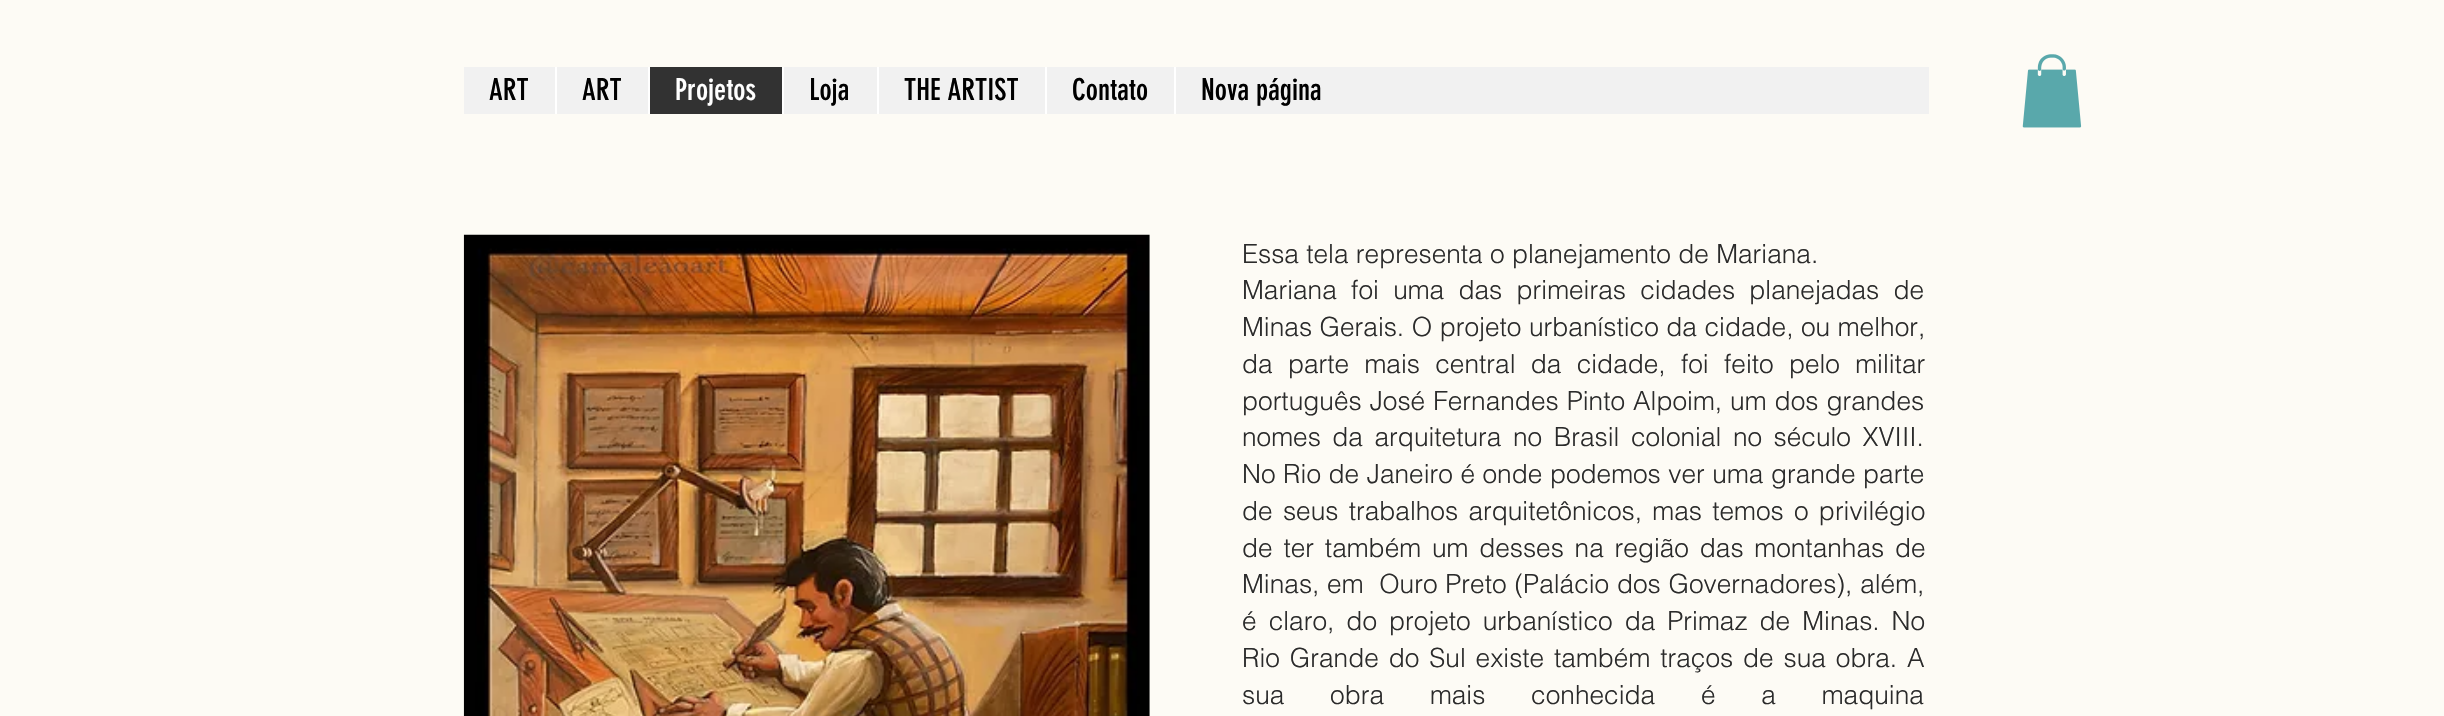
void draw(SkCanvas* canvas) {
	SkPaint fill;
	fill.setAntiAlias(true);
	auto makeFont = [&](const char* family, int weight, float size, bool italic = false) {
		SkFontStyle style(weight, SkFontStyle::kNormal_Width,
			italic ? SkFontStyle::kItalic_Slant : SkFontStyle::kUpright_Slant);
		SkFont result(fontMgr->matchFamilyStyle(family, style), size);
		result.setSubpixel(true);
		return result;
	};
	auto text = [&](const char* s, float x, float y, const SkFont& font) {
		canvas->drawString(s, x, y, font, fill);
	};
	auto spacedText = [&](const char* s, float x, float y, const SkFont& font, const SkPaint& ink, float letter, float word) {
		std::vector<SkGlyphID> glyphs(font.countText(s, strlen(s), SkTextEncoding::kUTF8));
		std::vector<float> xs(glyphs.size());
		font.textToGlyphs(s, strlen(s), SkTextEncoding::kUTF8, glyphs);
		font.getXPos(glyphs, xs, x);
		float extra = 0;
		for (size_t i = 0; i < glyphs.size(); i++) {
			xs[i] += extra;
			extra += letter + word * (glyphs[i] == font.unicharToGlyph(' '));
		}
		canvas->drawTextBlob(SkTextBlob::MakeFromPosHGlyphs(glyphs, xs, y, font), 0, 0, ink);
	};
	auto box = [&](float l, float t, float r, float b) {
		canvas->drawRect(SkRect::MakeLTRB(l, t, r, b), fill);
	};
	auto picture = [&](const char* path, float l, float t, float r, float b) {
		auto image = SkImages::DeferredFromEncodedData(SkData::MakeFromFileName(path));
		canvas->drawImageRect(image, SkRect::MakeLTRB(l, t, r, b), SkSamplingOptions());
	};
	canvas->clear(0xFFFDFBF5);
	fill.setColor(0xFFF1F1F1);
	box(464, 67, 1929, 114);
	fill.setColor(0xFFFFFFFF);
	box(555, 67, 557, 114);
	fill.setColor(0xFF323232);
	box(650, 67, 782, 114);
	fill.setColor(0xFFFFFFFF);
	box(648, 67, 650, 114);
	box(782, 67, 784, 114);
	box(877, 67, 879, 114);
	box(1045, 67, 1047, 114);
	box(1174, 67, 1176, 114);
	picture("image0.png", 2022, 54, 2082, 128);
	picture("image1.png", 463, 234, 1150, 716);
	auto font1 = makeFont("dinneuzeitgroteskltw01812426", 400, 29.75f);
	fill.setColor(0xFF000000);
	text("ART", 489, 100, font1);
	text("ART", 582, 100, font1);
	fill.setColor(0xFFFFFFFF);
	text("Projetos", 675, 100, font1);
	fill.setColor(0xFF000000);
	text("Loja", 809, 100, font1);
	text("THE ARTIST", 904, 100, font1);
	text("Contato", 1072, 100, font1);
	text("Nova página", 1201, 100, font1);
	auto font2 = makeFont("helvetica", 300, 26.25f);
	fill.setColor(0xFF2B2B2B);
	text("Essa tela representa o planejamento de Mariana.", 1242, 263, font2);
	spacedText("Mariana foi uma das primeiras cidades planejadas de", 1242, 299, font2, fill, 0, 7);
	spacedText("Minas Gerais. O projeto urbanístico da cidade, ou melhor,", 1242, 336, font2, fill, 0, 0.25f);
	spacedText("da parte mais central da cidade, foi feito pelo militar", 1242, 373, font2, fill, 0, 8);
	spacedText("português José Fernandes Pinto Alpoim, um dos grandes", 1242, 410, font2, fill, 0, 0.75f);
	spacedText("nomes da arquitetura no Brasil colonial no século XVIII.", 1242, 446, font2, fill, 0, 4.25f);
	spacedText("No Rio de Janeiro é onde podemos ver uma grande parte", 1242, 483, font2, fill, 0, 0.25f);
	spacedText("de seus trabalhos arquitetônicos, mas temos o privilégio", 1242, 520, font2, fill, 0, 3);
	spacedText("de ter também um desses na região das montanhas de", 1242, 557, font2, fill, 0, 3.5f);
	spacedText("Minas, em  Ouro Preto (Palácio dos Governadores), além,", 1242, 593, font2, fill, 0, 0.5f);
	spacedText("é claro, do projeto urbanístico da Primaz de Minas. No", 1242, 630, font2, fill, 0, 4.75f);
	spacedText("Rio Grande do Sul existe também traços de sua obra. A", 1242, 667, font2, fill, 0, 2.6f);
	spacedText("sua obra mais conhecida é a maquina", 1242, 704, font2, fill, 0, 38.5f);
}
